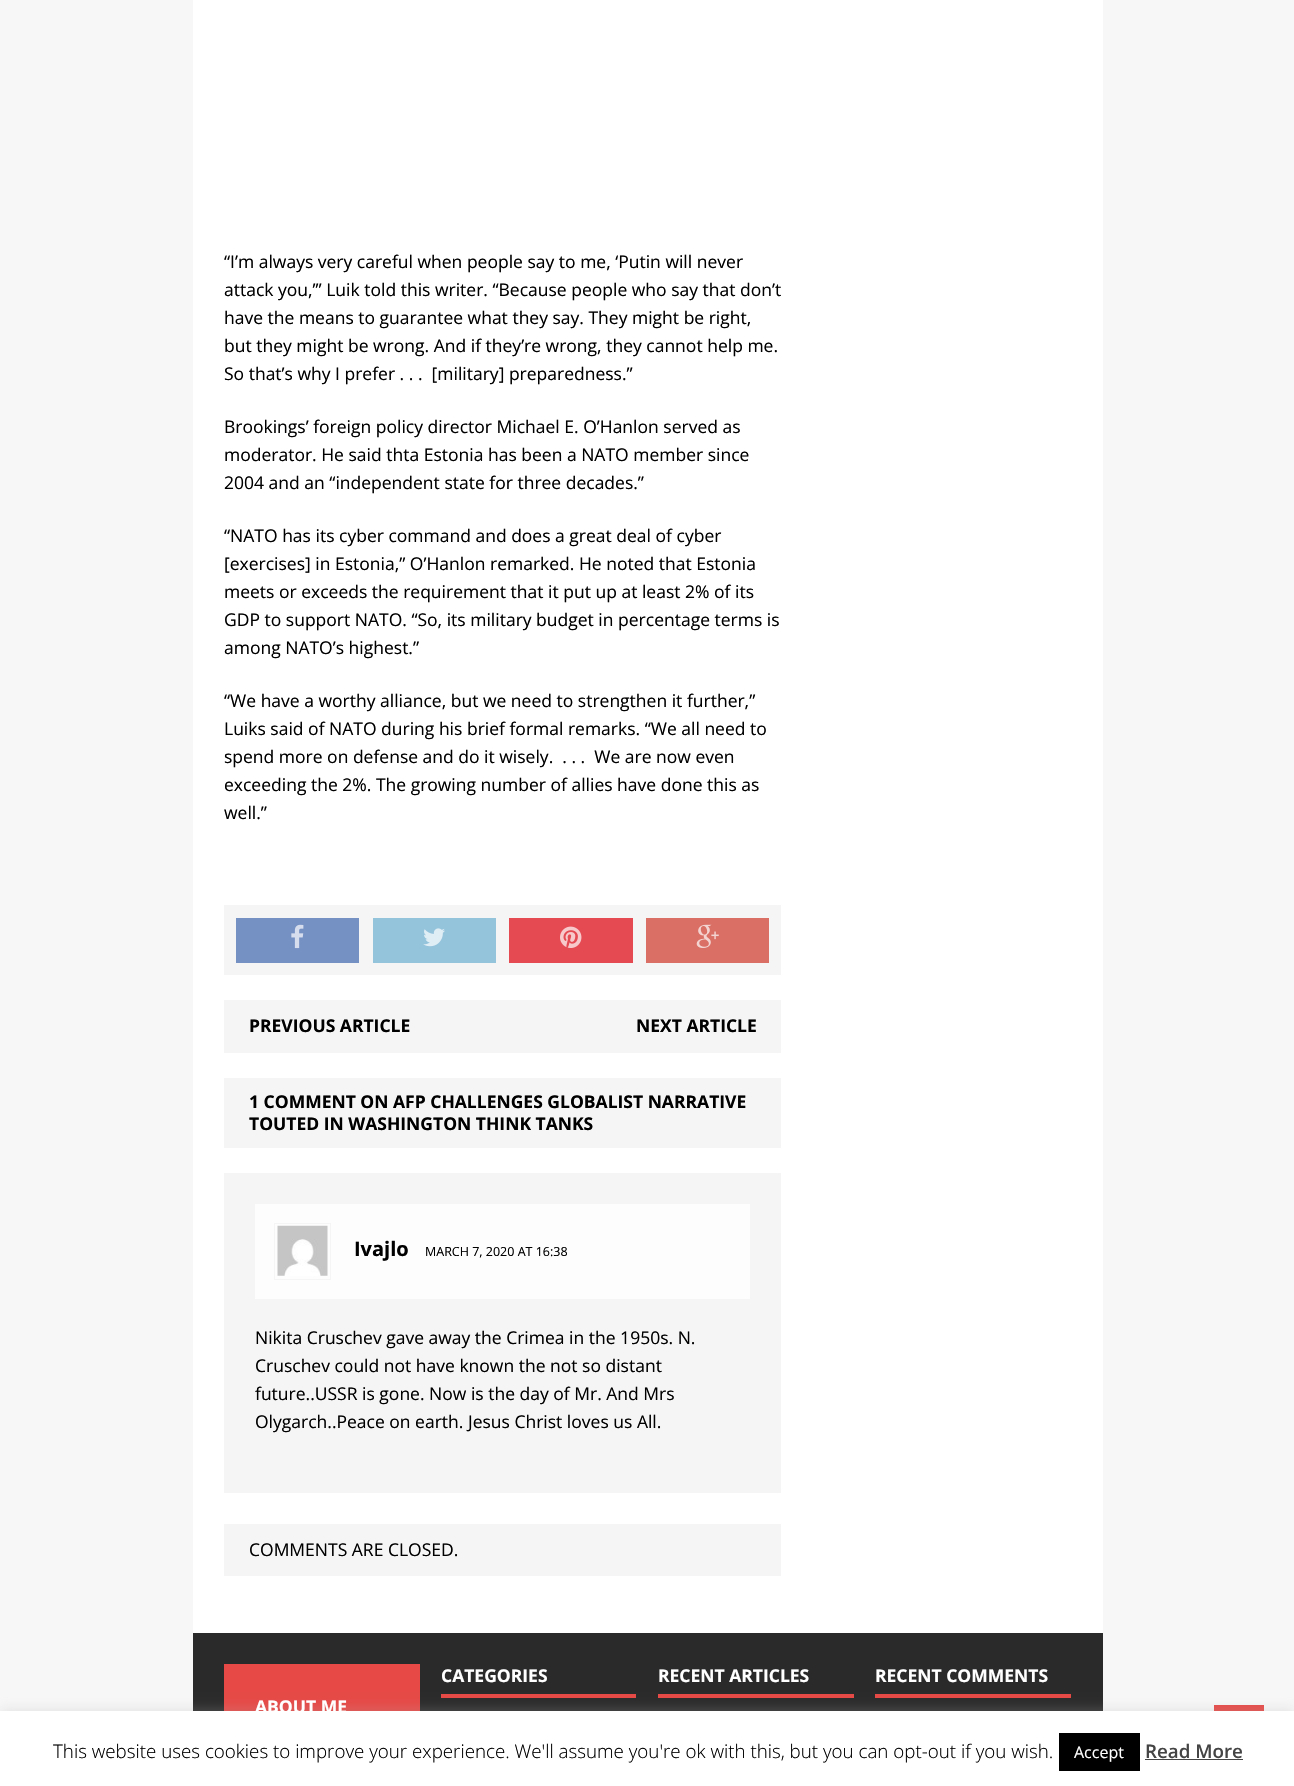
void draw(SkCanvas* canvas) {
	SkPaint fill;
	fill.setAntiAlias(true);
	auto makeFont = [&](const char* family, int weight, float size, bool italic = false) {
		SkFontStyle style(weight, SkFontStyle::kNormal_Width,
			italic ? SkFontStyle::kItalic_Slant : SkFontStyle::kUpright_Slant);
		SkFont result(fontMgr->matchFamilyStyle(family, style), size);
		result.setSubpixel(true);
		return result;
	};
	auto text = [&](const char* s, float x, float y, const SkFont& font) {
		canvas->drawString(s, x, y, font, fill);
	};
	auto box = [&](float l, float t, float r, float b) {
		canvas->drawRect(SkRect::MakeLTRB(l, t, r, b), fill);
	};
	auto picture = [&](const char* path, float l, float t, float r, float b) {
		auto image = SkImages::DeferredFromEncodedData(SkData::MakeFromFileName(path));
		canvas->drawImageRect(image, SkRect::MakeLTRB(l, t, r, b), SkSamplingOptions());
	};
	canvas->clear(0xFFF7F7F7);
	fill.setColor(0xFFFFFFFF);
	box(193, 0, 1103, 1633);
	fill.setColor(0xFFF5F5F5);
	box(224, 905, 781, 975);
	fill.setColor(0xFF7590C3);
	box(236, 918, 359, 963);
	picture("image0.png", 291, 924, 304, 949);
	fill.setColor(0xFF94C3DC);
	box(373, 918, 496, 963);
	picture("image1.png", 423, 928, 445, 947);
	fill.setColor(0xFFE54A53);
	box(509, 918, 633, 963);
	picture("image2.png", 560, 926, 582, 948);
	fill.setColor(0xFFD96F65);
	box(646, 918, 769, 963);
	picture("image3.png", 696, 924, 719, 948);
	fill.setColor(0xFFF5F5F5);
	box(224, 1000, 781, 1053);
	box(224, 1078, 781, 1148);
	box(224, 1173, 781, 1493);
	fill.setColor(0xFFFDFDFD);
	box(255, 1204, 750, 1299);
	fill.setStyle(SkPaint::kStroke_Style);
	fill.setStrokeWidth(1);
	fill.setColor(0xFFF5F5F5);
	canvas->drawRect(SkRect::MakeLTRB(274.5f, 1223.5f, 330.5f, 1279.5f), fill);
	picture("image4.png", 277, 1225, 328, 1276);
	fill.setStyle(SkPaint::kFill_Style);
	box(224, 1524, 781, 1576);
	fill.setColor(0xFF2A2A2A);
	box(193, 1633, 1103, 1711);
	fill.setColor(0xFFE64946);
	box(441, 1694, 636, 1698);
	box(658, 1694, 854, 1698);
	box(875, 1694, 1071, 1698);
	box(224, 1664, 420, 1711);
	box(1214, 1705, 1264, 1711);
	fill.setColor(0x4DACABAB);
	fill.setMaskFilter(SkMaskFilter::MakeBlur(kNormal_SkBlurStyle, 6));
	canvas->drawRect(SkRect::MakeLTRB(0, 1710, 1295, 1785), fill);
	fill.setMaskFilter(nullptr);
	fill.setColor(0xFFFFFFFF);
	box(0, 1711, 1294, 1786);
	fill.setColor(0xFF000000);
	box(1059, 1733, 1140, 1771);
	fill.setColor(0xFF444444);
	box(1145, 1759, 1243, 1760);
	auto font1 = makeFont("Open Sans", 400, 17.5f);
	fill.setColor(0xFF000000);
	text("“I’m always very careful when people say to me, ‘Putin will never", 224, 268, font1);
	text("attack you,’” Luik told this writer. “Because people who say that don’t", 224, 296, font1);
	text("have the means to guarantee what they say. They might be right,", 224, 324, font1);
	text("but they might be wrong. And if they’re wrong, they cannot help me.", 224, 352, font1);
	text("So that’s why I prefer . . .  [military] preparedness.”", 224, 380, font1);
	text("Brookings’ foreign policy director Michael E. O’Hanlon served as", 224, 433, font1);
	text("moderator. He said thta Estonia has been a NATO member since", 224, 461, font1);
	text("2004 and an “independent state for three decades.”", 224, 489, font1);
	text("“NATO has its cyber command and does a great deal of cyber", 224, 542, font1);
	text("[exercises] in Estonia,” O’Hanlon remarked. He noted that Estonia", 224, 570, font1);
	text("meets or exceeds the requirement that it put up at least 2% of its", 224, 598, font1);
	text("GDP to support NATO. “So, its military budget in percentage terms is", 224, 626, font1);
	text("among NATO’s highest.”", 224, 654, font1);
	text("“We have a worthy alliance, but we need to strengthen it further,”", 224, 707, font1);
	text("Luiks said of NATO during his brief formal remarks. “We all need to", 224, 735, font1);
	text("spend more on defense and do it wisely.  . . .  We are now even", 224, 763, font1);
	text("exceeding the 2%. The growing number of allies have done this as", 224, 791, font1);
	text("well.”", 224, 819, font1);
	auto font2 = makeFont("Open Sans", 700, 17.5f);
	text("PREVIOUS ARTICLE", 249, 1032, font2);
	text("NEXT ARTICLE", 636, 1032, font2);
	text("1 COMMENT ON AFP CHALLENGES GLOBALIST NARRATIVE", 249, 1108, font2);
	text("TOUTED IN WASHINGTON THINK TANKS", 249, 1130, font2);
	auto font3 = makeFont("Open Sans", 700, 20);
	text("Ivajlo", 354, 1256, font3);
	auto font4 = makeFont("Open Sans", 400, 12.5f);
	text("MARCH 7, 2020 AT 16:38", 425, 1256, font4);
	text("Nikita Cruschev gave away the Crimea in the 1950s. N.", 255, 1344, font1);
	text("Cruschev could not have known the not so distant", 255, 1372, font1);
	text("future..USSR is gone. Now is the day of Mr. And Mrs", 255, 1400, font1);
	text("Olygarch..Peace on earth. Jesus Christ loves us All.", 255, 1428, font1);
	text("COMMENTS ARE CLOSED.", 249, 1556, font1);
	fill.setColor(0xFFFFFFFF);
	text("CATEGORIES", 441, 1682, font2);
	text("RECENT ARTICLES", 658, 1682, font2);
	text("RECENT COMMENTS", 875, 1682, font2);
	text("ABOUT ME", 255, 1713, font2);
	auto font5 = makeFont("Open Sans", 300, 18.75f);
	fill.setColor(0xFF000000);
	text("This website uses cookies to improve your experience. We'll assume you're ok with this, but you can opt-out if you wish.", 53, 1758, font5);
	auto font6 = makeFont("Open Sans", 400, 16);
	fill.setColor(0xFFFFFFFF);
	text("Accept", 1074, 1758, font6);
	auto font7 = makeFont("Open Sans", 600, 18.75f);
	fill.setColor(0xFF444444);
	text("Read More", 1145, 1758, font7);
}
